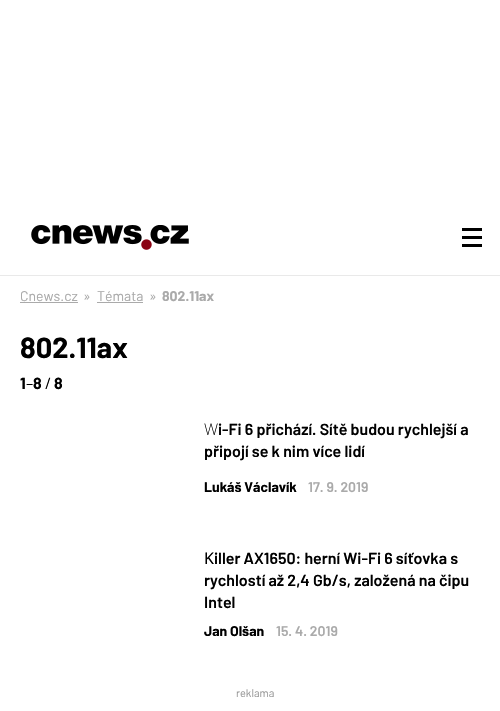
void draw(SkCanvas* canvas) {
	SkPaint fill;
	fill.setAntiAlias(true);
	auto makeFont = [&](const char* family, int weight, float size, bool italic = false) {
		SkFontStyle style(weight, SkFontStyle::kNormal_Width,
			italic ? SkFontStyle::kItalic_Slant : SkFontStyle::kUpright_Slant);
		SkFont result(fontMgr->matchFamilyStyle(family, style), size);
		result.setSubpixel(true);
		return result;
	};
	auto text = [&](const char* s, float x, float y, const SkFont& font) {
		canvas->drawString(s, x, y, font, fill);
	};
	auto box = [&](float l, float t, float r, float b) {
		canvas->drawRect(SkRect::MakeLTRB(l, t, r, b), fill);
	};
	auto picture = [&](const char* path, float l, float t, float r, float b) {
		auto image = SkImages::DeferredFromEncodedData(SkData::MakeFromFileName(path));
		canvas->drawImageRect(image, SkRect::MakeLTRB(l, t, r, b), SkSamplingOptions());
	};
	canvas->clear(0xFFFFFFFF);
	fill.setColor(0xFFE9E9E9);
	box(0, 275, 500, 276);
	picture("image0.png", 31, 225, 189, 250);
	fill.setColor(0xFF000000);
	box(462, 236, 482, 239);
	box(462, 228, 482, 231);
	box(462, 244, 482, 247);
	fill.setColor(0xFFAAAAAA);
	box(20, 302, 78, 303);
	box(97, 302, 143, 303);
	auto font1 = makeFont("Barlow", 400, 14);
	text("Cnews.cz", 20, 301, font1);
	text("»", 83, 301, font1);
	text("Témata", 97, 301, font1);
	text("»", 149, 301, font1);
	auto font2 = makeFont("Barlow", 700, 14);
	text("802.11ax", 162, 301, font2);
	auto font3 = makeFont("Barlow", 700, 29);
	fill.setColor(0xFF000000);
	text("802.11ax", 20, 358, font3);
	auto font4 = makeFont("Barlow", 700, 16);
	text("1", 20, 389, font4);
	auto font5 = makeFont("Barlow", 400, 16);
	text("–", 26, 389, font5);
	text("8", 33, 389, font4);
	text("/", 45, 389, font5);
	text("8", 54, 389, font4);
	auto font6 = makeFont("Noto Sans", 200, 16);
	text("W", 204, 435, font6);
	auto font7 = makeFont("Barlow", 600, 16);
	text("i-Fi 6 přichází. Sítě budou rychlejší a", 218, 435, font7);
	text("připojí se k nim více lidí", 204, 457, font7);
	text("Lukáš Václavík", 204, 492, font2);
	auto font8 = makeFont("Barlow", 600, 14);
	fill.setColor(0xFFAAAAAA);
	text("17. 9. 2019", 308, 492, font8);
	fill.setColor(0xFF000000);
	text("iller AX1650: herní Wi-Fi 6 síťovka s", 214, 564, font7);
	text("rychlostí až 2,4 Gb/s, založená na čipu", 204, 586, font7);
	text("Intel", 204, 608, font7);
	auto font9 = makeFont("Noto Sans", 400, 16);
	text("K", 204, 564, font9);
	text("Jan Olšan", 204, 636, font2);
	fill.setColor(0xFFAAAAAA);
	text("15. 4. 2019", 276, 636, font8);
	auto font10 = makeFont("Barlow", 400, 11);
	fill.setColor(0xFF999999);
	text("reklama", 236, 697, font10);
}
